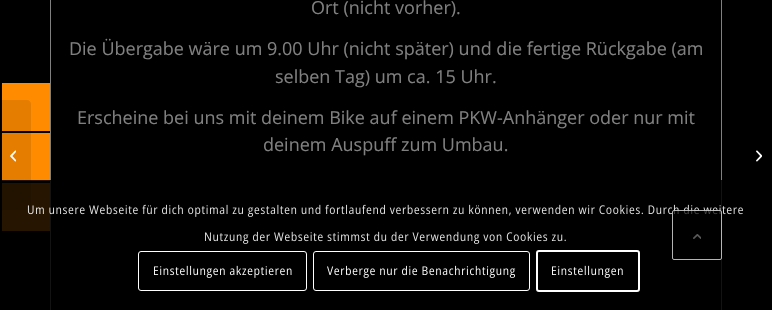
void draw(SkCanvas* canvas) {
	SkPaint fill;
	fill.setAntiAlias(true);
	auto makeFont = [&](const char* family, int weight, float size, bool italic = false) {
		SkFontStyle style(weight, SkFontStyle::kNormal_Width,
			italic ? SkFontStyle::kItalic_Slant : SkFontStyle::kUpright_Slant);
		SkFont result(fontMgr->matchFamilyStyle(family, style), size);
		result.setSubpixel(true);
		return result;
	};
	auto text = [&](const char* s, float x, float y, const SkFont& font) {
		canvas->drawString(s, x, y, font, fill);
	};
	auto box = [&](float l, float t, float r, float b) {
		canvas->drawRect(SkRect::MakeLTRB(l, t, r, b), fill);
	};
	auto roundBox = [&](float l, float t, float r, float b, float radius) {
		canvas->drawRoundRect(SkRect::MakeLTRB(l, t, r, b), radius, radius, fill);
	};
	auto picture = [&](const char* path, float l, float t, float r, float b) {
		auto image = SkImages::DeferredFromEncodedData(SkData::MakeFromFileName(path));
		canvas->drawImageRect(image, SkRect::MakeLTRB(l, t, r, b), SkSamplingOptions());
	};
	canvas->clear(0xFF000000);
	fill.setColor(0xFFFF8C00);
	box(2, 83, 50, 131);
	box(2, 133, 50, 181);
	box(2, 183, 50, 231);
	fill.setColor(0x1A000000);
	canvas->drawPath(SkPathBuilder().moveTo(0, 100).lineTo(27, 100).cubicTo(29, 100, 31, 102, 31, 104).lineTo(31, 206).cubicTo(31, 208, 29, 210, 27, 210).lineTo(0, 210).close().detach(), fill);
	picture("image0.png", 10, 150, 16, 162);
	fill.setStyle(SkPaint::kStroke_Style);
	fill.setStrokeWidth(1);
	fill.setColor(0xFF808080);
	canvas->drawRect(SkRect::MakeLTRB(50.5f, -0.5f, 721.5f, 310.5f), fill);
	picture("image1.png", 756, 150, 762, 162);
	fill.setStyle(SkPaint::kFill_Style);
	fill.setColor(0xD9000000);
	box(2, 180, 722, 310);
	picture("image2.png", 27, 204, 743, 217);
	picture("image3.png", 205, 231, 566, 244);
	fill.setStyle(SkPaint::kStroke_Style);
	fill.setColor(0xFFFFFFFF);
	canvas->drawRoundRect(SkRect::MakeLTRB(138.5f, 251.5f, 306.5f, 290.5f), 2.5f, 2.5f, fill);
	picture("image4.png", 154, 265, 292, 278);
	canvas->drawRoundRect(SkRect::MakeLTRB(313.5f, 251.5f, 529.5f, 290.5f), 2.5f, 2.5f, fill);
	picture("image5.png", 327, 265, 516, 278);
	fill.setStrokeWidth(2);
	canvas->drawRoundRect(SkRect::MakeLTRB(537, 251, 639, 291), 2, 2, fill);
	picture("image6.png", 552, 265, 623, 278);
	fill.setStyle(SkPaint::kFill_Style);
	fill.setColor(0xB3000000);
	roundBox(672, 210, 722, 260, 2);
	fill.setStyle(SkPaint::kStroke_Style);
	fill.setStrokeWidth(1);
	fill.setColor(0xB3FFFFFF);
	canvas->drawRoundRect(SkRect::MakeLTRB(672.5f, 210.5f, 721.5f, 259.5f), 1.5f, 1.5f, fill);
	picture("image7.png", 693, 234, 701, 239);
	auto font1 = makeFont("Open Sans", 400, 18);
	fill.setStyle(SkPaint::kFill_Style);
	fill.setColor(0xFF808080);
	text("Ort (nicht vorher).", 311, 14, font1);
	text("Die Übergabe wäre um 9.00 Uhr (nicht später) und die fertige Rückgabe (am", 69, 55, font1);
	text("selben Tag) um ca. 15 Uhr.", 275, 83, font1);
	text("Erscheine bei uns mit deinem Bike auf einem PKW-Anhänger oder nur mit", 77, 124, font1);
	text("deinem Auspuff zum Umbau.", 263, 151, font1);
}
